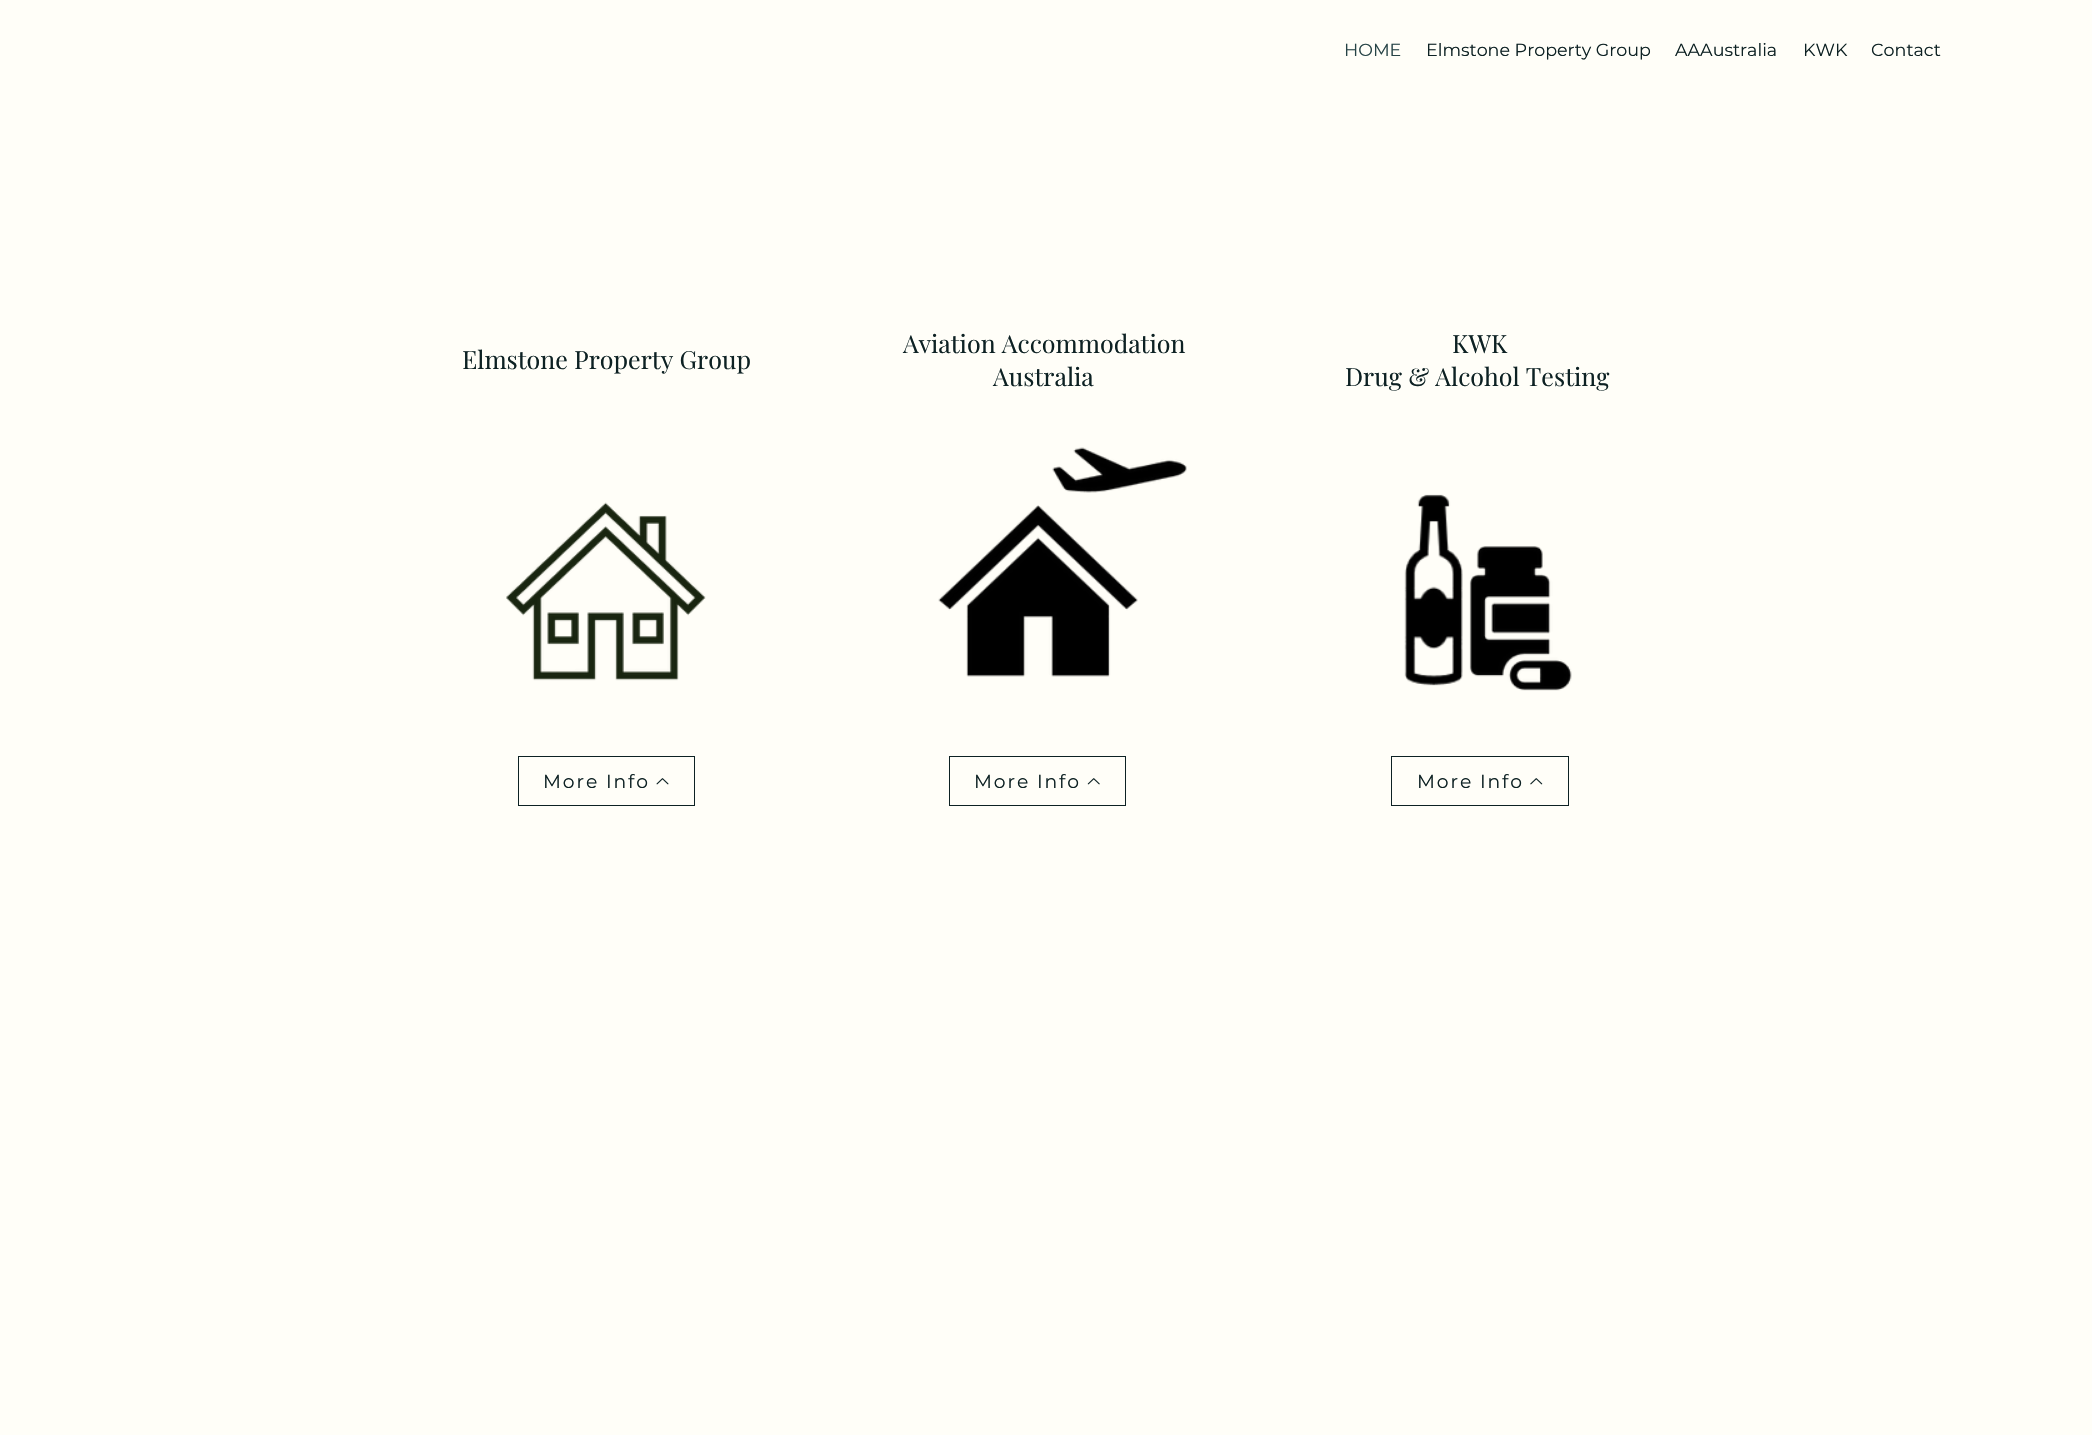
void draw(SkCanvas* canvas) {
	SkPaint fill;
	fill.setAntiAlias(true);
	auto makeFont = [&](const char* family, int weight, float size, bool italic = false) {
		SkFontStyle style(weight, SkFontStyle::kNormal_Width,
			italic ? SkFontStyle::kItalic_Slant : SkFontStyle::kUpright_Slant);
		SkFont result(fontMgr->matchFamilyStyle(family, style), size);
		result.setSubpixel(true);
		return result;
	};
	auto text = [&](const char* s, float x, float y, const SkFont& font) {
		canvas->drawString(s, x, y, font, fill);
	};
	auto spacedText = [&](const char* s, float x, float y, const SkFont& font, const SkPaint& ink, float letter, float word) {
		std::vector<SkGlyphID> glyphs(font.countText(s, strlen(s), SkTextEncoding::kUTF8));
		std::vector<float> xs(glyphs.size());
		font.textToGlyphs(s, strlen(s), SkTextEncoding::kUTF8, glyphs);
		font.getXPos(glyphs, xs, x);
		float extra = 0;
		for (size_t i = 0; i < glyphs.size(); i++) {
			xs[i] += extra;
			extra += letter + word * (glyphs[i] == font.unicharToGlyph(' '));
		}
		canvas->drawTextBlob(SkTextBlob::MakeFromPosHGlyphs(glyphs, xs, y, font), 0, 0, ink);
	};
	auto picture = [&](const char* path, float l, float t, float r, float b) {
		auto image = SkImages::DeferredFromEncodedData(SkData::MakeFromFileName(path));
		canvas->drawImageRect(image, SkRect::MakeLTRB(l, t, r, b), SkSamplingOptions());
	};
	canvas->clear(0xFFFFFEF8);
	picture("image0.png", 506, 502, 706, 681);
	fill.setStyle(SkPaint::kStroke_Style);
	fill.setStrokeWidth(1);
	fill.setColor(0xFF0D2123);
	canvas->drawRect(SkRect::MakeLTRB(518.5f, 756.5f, 694.5f, 805.5f), fill);
	picture("image1.png", 656, 778, 669, 785);
	picture("image2.png", 1052, 447, 1187, 493);
	picture("image3.png", 938, 505, 1138, 677);
	canvas->drawRect(SkRect::MakeLTRB(949.5f, 756.5f, 1125.5f, 805.5f), fill);
	picture("image4.png", 1087, 778, 1100, 785);
	picture("image5.png", 1404, 494, 1463, 686);
	picture("image6.png", 1469, 546, 1572, 691);
	canvas->drawRect(SkRect::MakeLTRB(1391.5f, 756.5f, 1568.5f, 805.5f), fill);
	picture("image7.png", 1530, 778, 1543, 785);
	auto font1 = makeFont("Montserrat", 400, 17.5f);
	fill.setStyle(SkPaint::kFill_Style);
	fill.setColor(0xFF264346);
	text("HOME", 1344, 56, font1);
	fill.setColor(0xFF0D2123);
	text("Elmstone Property Group", 1426, 56, font1);
	text("AAAustralia", 1675, 56, font1);
	text("KWK", 1803, 56, font1);
	text("Contact", 1871, 56, font1);
	auto font2 = makeFont("Playfair Display", 400, 25);
	text("Elmstone Property Group", 462, 369, font2);
	auto font3 = makeFont("Montserrat", 400, 18.75f);
	spacedText("More Info", 543, 788, font3, fill, 1.9f, 0);
	text("Aviation Accommodation", 903, 353, font2);
	text("Australia", 993, 386, font2);
	spacedText("More Info", 974, 788, font3, fill, 1.9f, 0);
	text("KWK", 1452, 353, font2);
	text("Drug & Alcohol Testing", 1345, 386, font2);
	spacedText("More Info", 1417, 788, font3, fill, 1.9f, 0);
}
